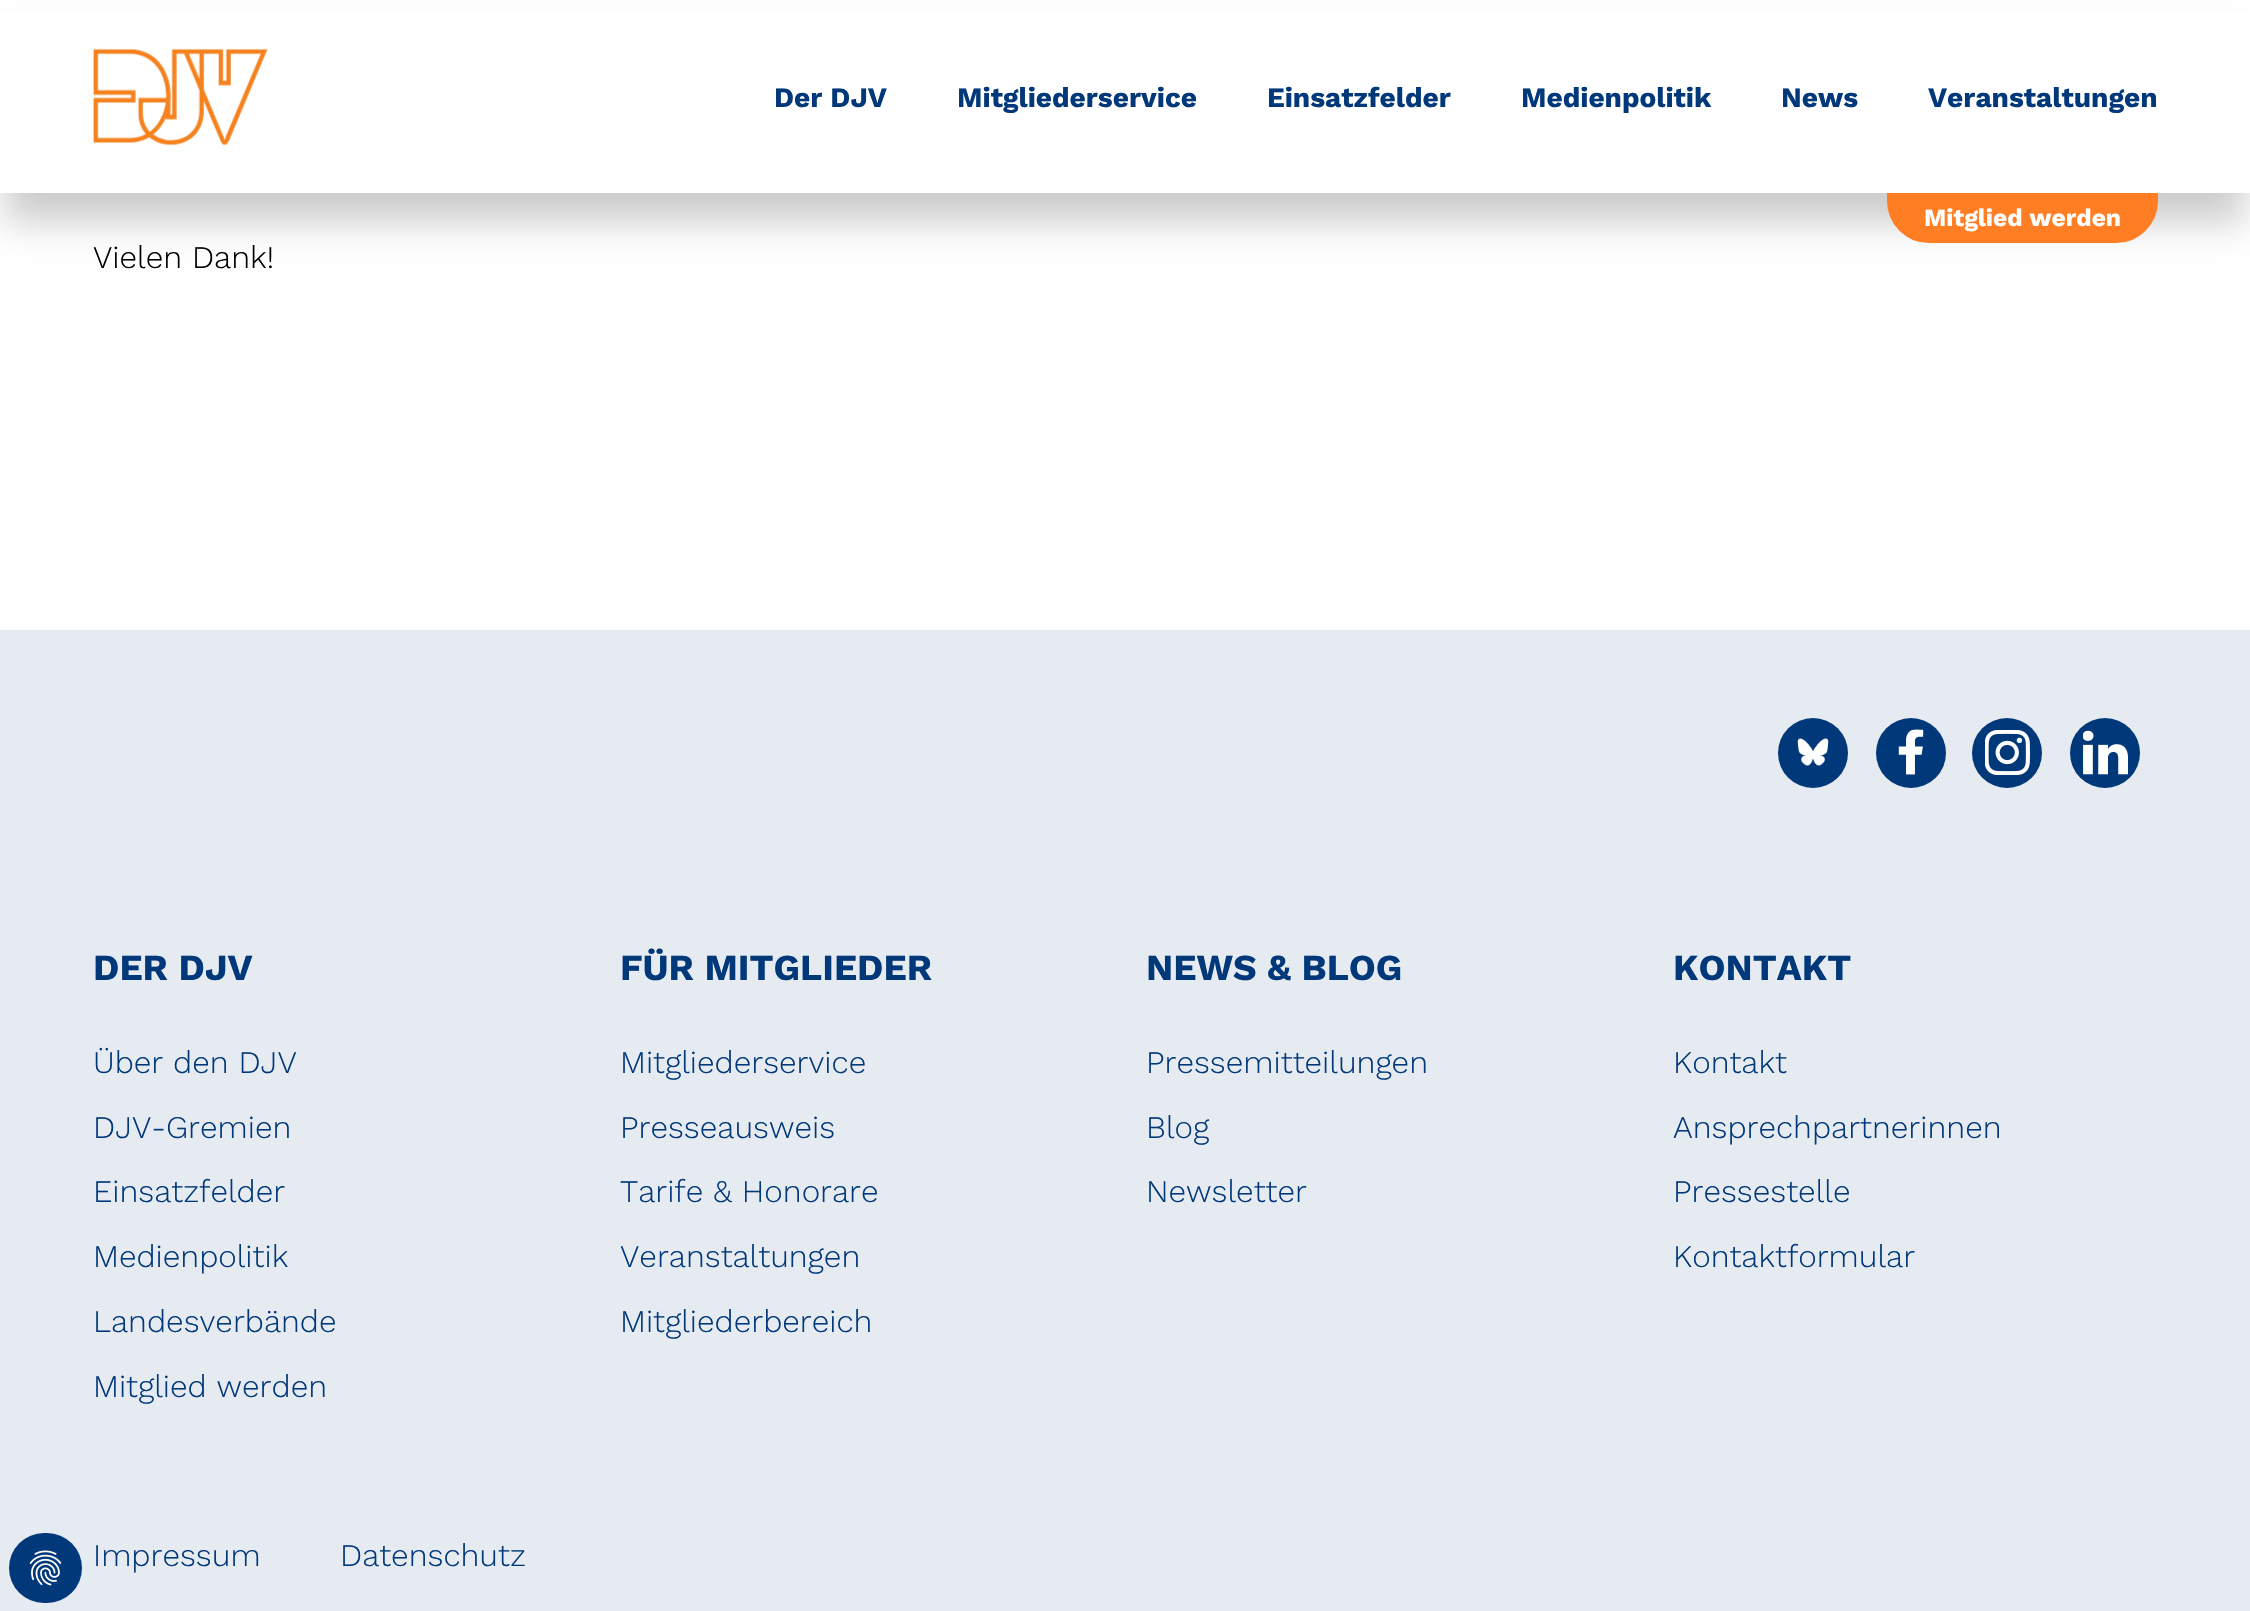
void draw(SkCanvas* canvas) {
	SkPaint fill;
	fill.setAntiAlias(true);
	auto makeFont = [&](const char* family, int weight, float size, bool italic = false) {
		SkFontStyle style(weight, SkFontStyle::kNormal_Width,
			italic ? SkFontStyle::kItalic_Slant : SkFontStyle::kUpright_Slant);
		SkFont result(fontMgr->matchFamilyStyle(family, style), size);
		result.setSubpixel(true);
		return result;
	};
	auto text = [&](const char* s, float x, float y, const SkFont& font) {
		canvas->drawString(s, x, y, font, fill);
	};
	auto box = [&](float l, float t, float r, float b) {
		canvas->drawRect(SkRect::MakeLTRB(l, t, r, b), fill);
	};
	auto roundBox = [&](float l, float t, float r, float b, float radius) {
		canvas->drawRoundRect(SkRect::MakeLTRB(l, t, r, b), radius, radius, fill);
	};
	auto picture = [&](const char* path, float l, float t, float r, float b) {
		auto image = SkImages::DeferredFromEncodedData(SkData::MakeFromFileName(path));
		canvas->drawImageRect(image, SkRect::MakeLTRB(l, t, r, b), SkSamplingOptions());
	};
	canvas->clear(0xFFFFFFFF);
	fill.setColor(0xFFE6EBF2);
	box(0, 630, 2250, 1611);
	fill.setColor(0xFF013879);
	roundBox(9, 1533, 82, 1603, 35);
	picture("image0.png", 29, 1550, 62, 1586);
	fill.setColor(0x33000000);
	fill.setMaskFilter(SkMaskFilter::MakeBlur(kNormal_SkBlurStyle, 17.5f));
	canvas->drawRect(SkRect::MakeLTRB(5, 40, 2245, 222), fill);
	fill.setMaskFilter(nullptr);
	fill.setColor(0xFFFFFFFF);
	box(0, 11, 2250, 193);
	picture("image1.png", 92, 48, 268, 146);
	fill.setColor(0xFFFF7E23);
	canvas->drawPath(SkPathBuilder().moveTo(1888, 194).lineTo(2157, 194).lineTo(2157, 201).cubicTo(2157, 223.5f, 2138.5f, 242, 2116, 242).lineTo(1929, 242).cubicTo(1906.5f, 242, 1888, 223.5f, 1888, 201).close().detach(), fill);
	fill.setStyle(SkPaint::kStroke_Style);
	fill.setStrokeWidth(2);
	canvas->drawPath(SkPathBuilder().moveTo(1888, 194).lineTo(2157, 194).lineTo(2157, 201).cubicTo(2157, 223.5f, 2138.5f, 242, 2116, 242).lineTo(1929, 242).cubicTo(1906.5f, 242, 1888, 223.5f, 1888, 201).close().detach(), fill);
	fill.setStyle(SkPaint::kFill_Style);
	fill.setColor(0xFF013879);
	canvas->drawCircle(1813, 753, 35, fill);
	picture("image2.png", 1797, 738, 1829, 766);
	canvas->drawCircle(1911, 753, 35, fill);
	picture("image3.png", 1898, 729, 1924, 775);
	canvas->drawCircle(2007, 753, 35, fill);
	picture("image4.png", 1985, 730, 2030, 775);
	canvas->drawCircle(2105, 753, 35, fill);
	picture("image5.png", 2083, 730, 2128, 775);
	auto font1 = makeFont("Work Sans", 700, 28);
	text("Der DJV", 774, 107, font1);
	text("Mitgliederservice", 957, 107, font1);
	text("Einsatzfelder", 1267, 107, font1);
	text("Medienpolitik", 1521, 107, font1);
	text("News", 1781, 107, font1);
	text("Veranstaltungen", 1928, 107, font1);
	auto font2 = makeFont("Work Sans", 700, 24.5f);
	fill.setColor(0xFFFFFFFF);
	text("Mitglied werden", 1924, 226, font2);
	auto font3 = makeFont("Work Sans", 300, 31.5f);
	fill.setColor(0xFF000000);
	text("Vielen Dank!", 93, 268, font3);
	auto font4 = makeFont("Work Sans", 700, 36.75f);
	fill.setColor(0xFF013879);
	text("DER DJV", 93, 980, font4);
	text("Über den DJV", 93, 1073, font3);
	text("DJV-Gremien", 93, 1138, font3);
	text("Einsatzfelder", 93, 1202, font3);
	text("Medienpolitik", 93, 1267, font3);
	text("Landesverbände", 93, 1332, font3);
	text("Mitglied werden", 93, 1397, font3);
	text("FÜR MITGLIEDER", 620, 980, font4);
	text("Mitgliederservice", 620, 1073, font3);
	text("Presseausweis", 620, 1138, font3);
	text("Tarife & Honorare", 620, 1202, font3);
	text("Veranstaltungen", 620, 1267, font3);
	text("Mitgliederbereich", 620, 1332, font3);
	text("NEWS & BLOG", 1146, 980, font4);
	text("Pressemitteilungen", 1146, 1073, font3);
	text("Blog", 1146, 1138, font3);
	text("Newsletter", 1146, 1202, font3);
	text("KONTAKT", 1673, 980, font4);
	text("Kontakt", 1673, 1073, font3);
	text("Ansprechpartnerinnen", 1673, 1138, font3);
	text("Pressestelle", 1673, 1202, font3);
	text("Kontaktformular", 1673, 1267, font3);
	text("Impressum", 93, 1566, font3);
	text("Datenschutz", 340, 1566, font3);
}
